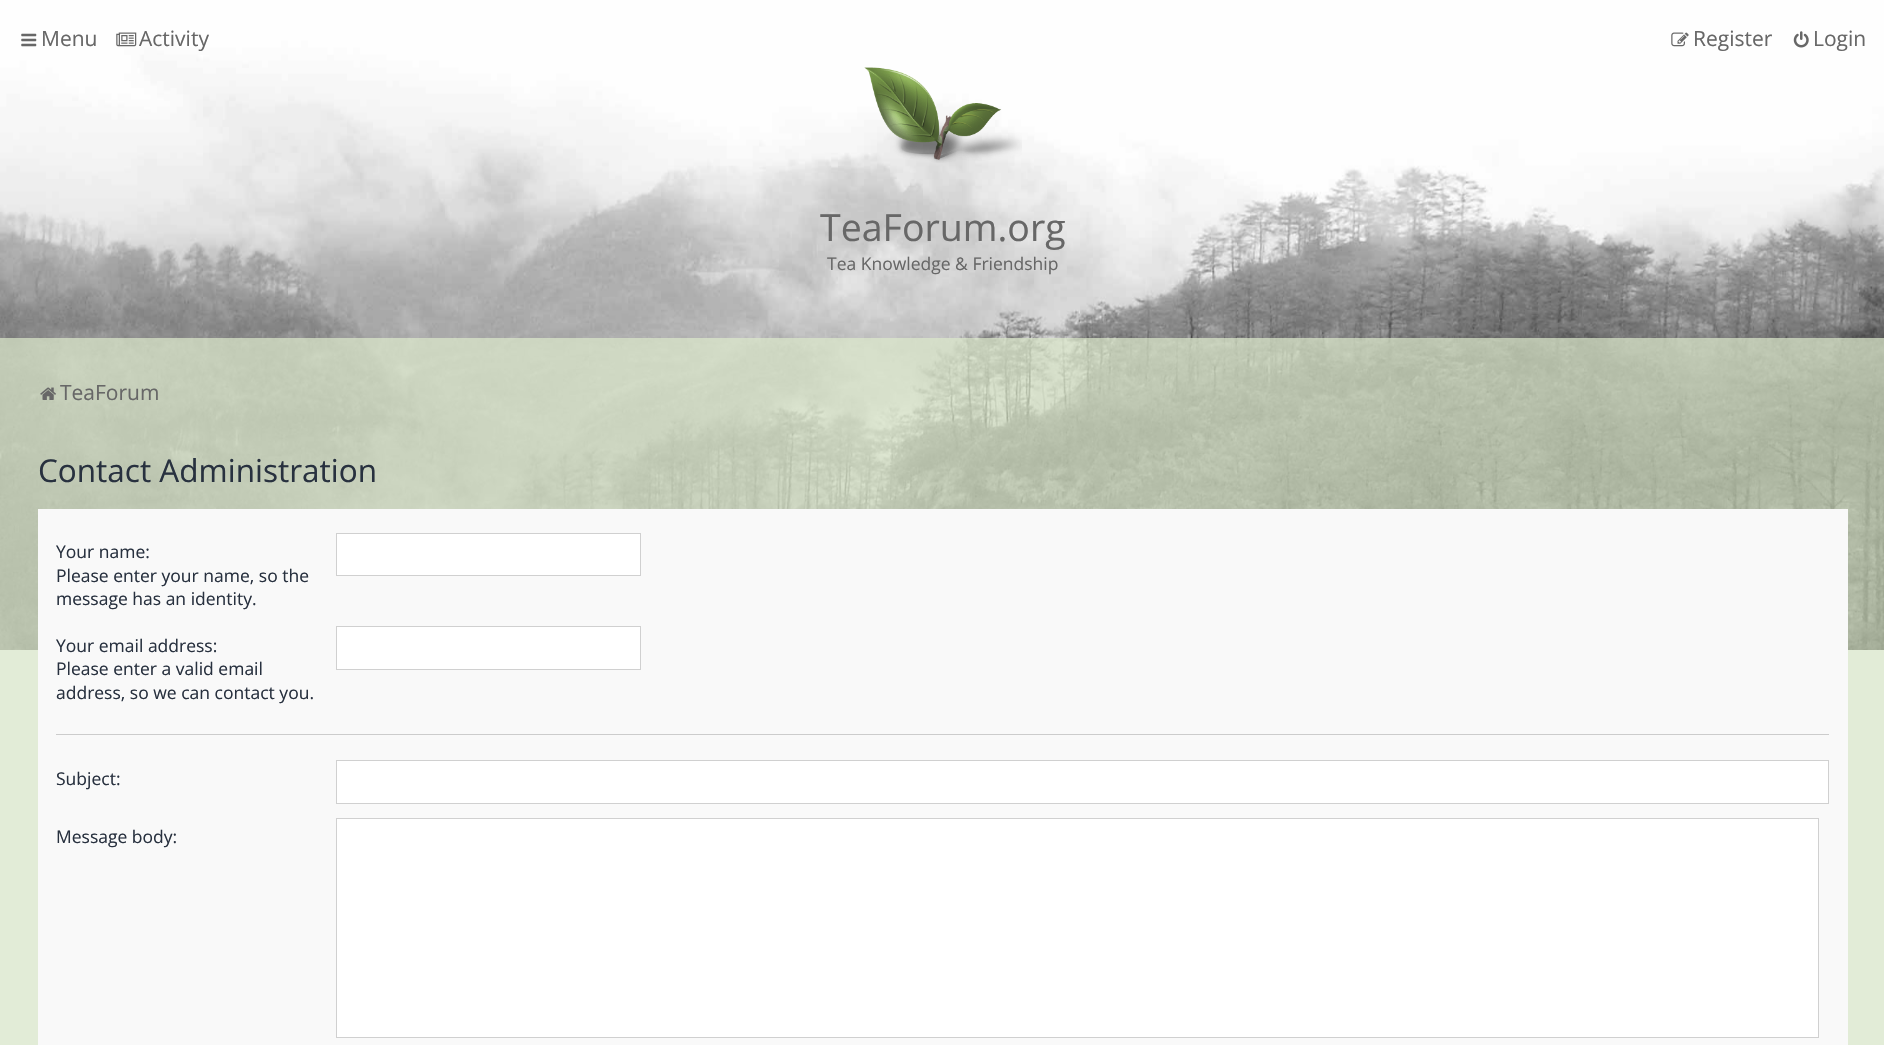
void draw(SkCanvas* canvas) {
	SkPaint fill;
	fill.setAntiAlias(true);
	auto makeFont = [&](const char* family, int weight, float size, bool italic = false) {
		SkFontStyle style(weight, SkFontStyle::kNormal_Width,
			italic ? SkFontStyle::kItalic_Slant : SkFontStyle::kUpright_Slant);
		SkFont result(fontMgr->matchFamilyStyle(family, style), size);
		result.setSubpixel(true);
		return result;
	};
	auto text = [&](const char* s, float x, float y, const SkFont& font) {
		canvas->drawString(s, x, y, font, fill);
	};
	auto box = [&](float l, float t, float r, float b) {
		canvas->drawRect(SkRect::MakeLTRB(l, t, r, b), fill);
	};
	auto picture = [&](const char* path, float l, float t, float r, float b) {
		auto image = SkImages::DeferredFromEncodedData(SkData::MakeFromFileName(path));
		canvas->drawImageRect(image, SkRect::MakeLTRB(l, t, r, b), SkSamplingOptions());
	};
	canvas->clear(0xFFECF0F1);
	picture("image0.png", 0, 0, 1884, 650);
	picture("image1.png", 21, 33, 37, 47);
	picture("image2.png", 116, 32, 137, 47);
	picture("image3.png", 1671, 32, 1689, 47);
	picture("image4.png", 1793, 31, 1809, 48);
	picture("image5.png", 864, 67, 1022, 163);
	fill.setColor(0xB3DDE9CC);
	box(0, 338, 1884, 1045);
	picture("image6.png", 40, 387, 56, 400);
	fill.setColor(0xFFF9F9F9);
	box(38, 509, 1848, 1045);
	fill.setColor(0xFFFFFFFF);
	canvas->drawRect(SkRect::MakeLTRB(336.5f, 533.5f, 640.5f, 575.5f), fill);
	fill.setStyle(SkPaint::kStroke_Style);
	fill.setStrokeWidth(1);
	fill.setColor(0xFFD0D0D0);
	canvas->drawRect(SkRect::MakeLTRB(336.5f, 533.5f, 640.5f, 575.5f), fill);
	fill.setStyle(SkPaint::kFill_Style);
	fill.setColor(0xFFFFFFFF);
	canvas->drawRect(SkRect::MakeLTRB(336.5f, 626.5f, 640.5f, 669.5f), fill);
	fill.setStyle(SkPaint::kStroke_Style);
	fill.setColor(0xFFD0D0D0);
	canvas->drawRect(SkRect::MakeLTRB(336.5f, 626.5f, 640.5f, 669.5f), fill);
	fill.setStyle(SkPaint::kFill_Style);
	fill.setColor(0xFFCCCCCC);
	box(56, 734, 1829, 735);
	fill.setColor(0xFFFFFFFF);
	canvas->drawRect(SkRect::MakeLTRB(336.5f, 760.5f, 1828.5f, 803.5f), fill);
	fill.setStyle(SkPaint::kStroke_Style);
	fill.setColor(0xFFD0D0D0);
	canvas->drawRect(SkRect::MakeLTRB(336.5f, 760.5f, 1828.5f, 803.5f), fill);
	fill.setStyle(SkPaint::kFill_Style);
	fill.setColor(0xFFFFFFFF);
	canvas->drawRect(SkRect::MakeLTRB(336.5f, 818.5f, 1818.5f, 1037.5f), fill);
	fill.setStyle(SkPaint::kStroke_Style);
	fill.setColor(0xFFD0D0D0);
	canvas->drawRect(SkRect::MakeLTRB(336.5f, 818.5f, 1818.5f, 1037.5f), fill);
	auto font1 = makeFont("Open Sans", 400, 21);
	fill.setStyle(SkPaint::kFill_Style);
	fill.setColor(0xFF676767);
	text("Menu", 41, 46, font1);
	text("Activity", 139, 46, font1);
	text("Register", 1693, 46, font1);
	text("Login", 1813, 46, font1);
	auto font2 = makeFont("Open Sans", 400, 37.5f);
	text("TeaForum.org", 820, 241, font2);
	auto font3 = makeFont("Open Sans", 400, 17.5f);
	text("Tea Knowledge & Friendship", 827, 270, font3);
	text("TeaForum", 60, 400, font1);
	auto font4 = makeFont("Open Sans", 400, 31.5f);
	fill.setColor(0xFF28313F);
	text("Contact Administration", 38, 482, font4);
	text("Your name:", 56, 558, font3);
	text("Please enter your name, so the", 56, 582, font3);
	text("message has an identity.", 56, 605, font3);
	text("Your email address:", 56, 652, font3);
	text("Please enter a valid email", 56, 675, font3);
	text("address, so we can contact you.", 56, 699, font3);
	text("Subject:", 56, 785, font3);
	text("Message body:", 56, 843, font3);
}
